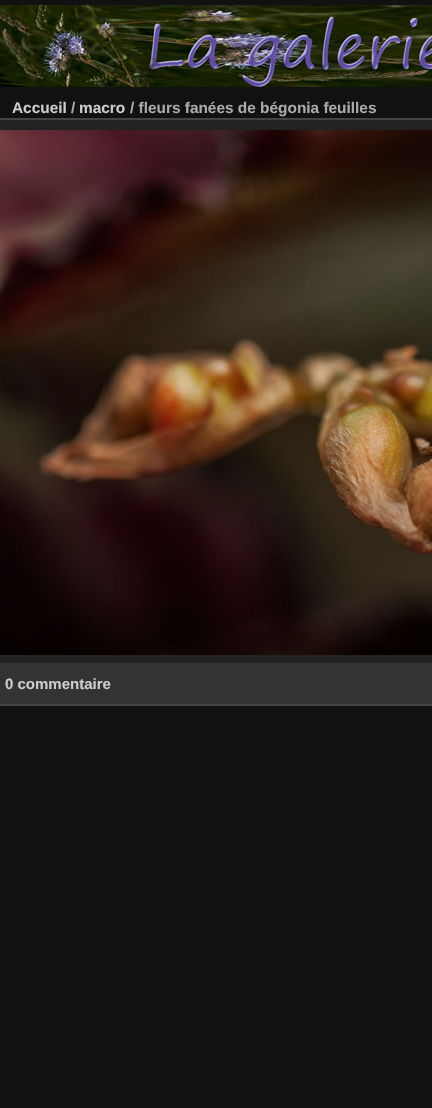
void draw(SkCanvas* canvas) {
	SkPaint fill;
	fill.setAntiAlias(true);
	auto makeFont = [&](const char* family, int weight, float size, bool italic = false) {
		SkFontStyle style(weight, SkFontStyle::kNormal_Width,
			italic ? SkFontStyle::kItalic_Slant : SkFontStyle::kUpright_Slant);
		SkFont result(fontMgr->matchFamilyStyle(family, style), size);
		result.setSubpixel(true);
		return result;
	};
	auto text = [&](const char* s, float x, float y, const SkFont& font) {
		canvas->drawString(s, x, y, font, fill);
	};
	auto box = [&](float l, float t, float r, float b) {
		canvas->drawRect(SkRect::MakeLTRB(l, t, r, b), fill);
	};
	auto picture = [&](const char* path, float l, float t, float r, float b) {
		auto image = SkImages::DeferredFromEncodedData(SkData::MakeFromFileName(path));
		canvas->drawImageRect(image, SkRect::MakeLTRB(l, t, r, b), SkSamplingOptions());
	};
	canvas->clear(0xFF111111);
	picture("image0.png", 0, 5, 432, 87);
	fill.setColor(0xFF222222);
	box(0, 120, 432, 663);
	fill.setColor(0xFF444444);
	box(0, 704, 432, 706);
	box(0, 118, 432, 120);
	picture("image1.png", 0, 130, 432, 655);
	fill.setColor(0xFF333333);
	box(0, 663, 432, 704);
	auto font1 = makeFont("Liberation Sans", 700, 15.4f);
	fill.setColor(0xFFCCCCCC);
	text("Accueil", 12, 113, font1);
	fill.setColor(0xFFAAAAAA);
	text("/", 71, 113, font1);
	fill.setColor(0xFFCCCCCC);
	text("macro", 79, 113, font1);
	fill.setColor(0xFFAAAAAA);
	text("/ fleurs fanées de bégonia feuilles", 130, 113, font1);
	auto font2 = makeFont("Liberation Sans", 700, 15);
	fill.setColor(0xFFCCCCCC);
	text("0 commentaire", 5, 689, font2);
}
